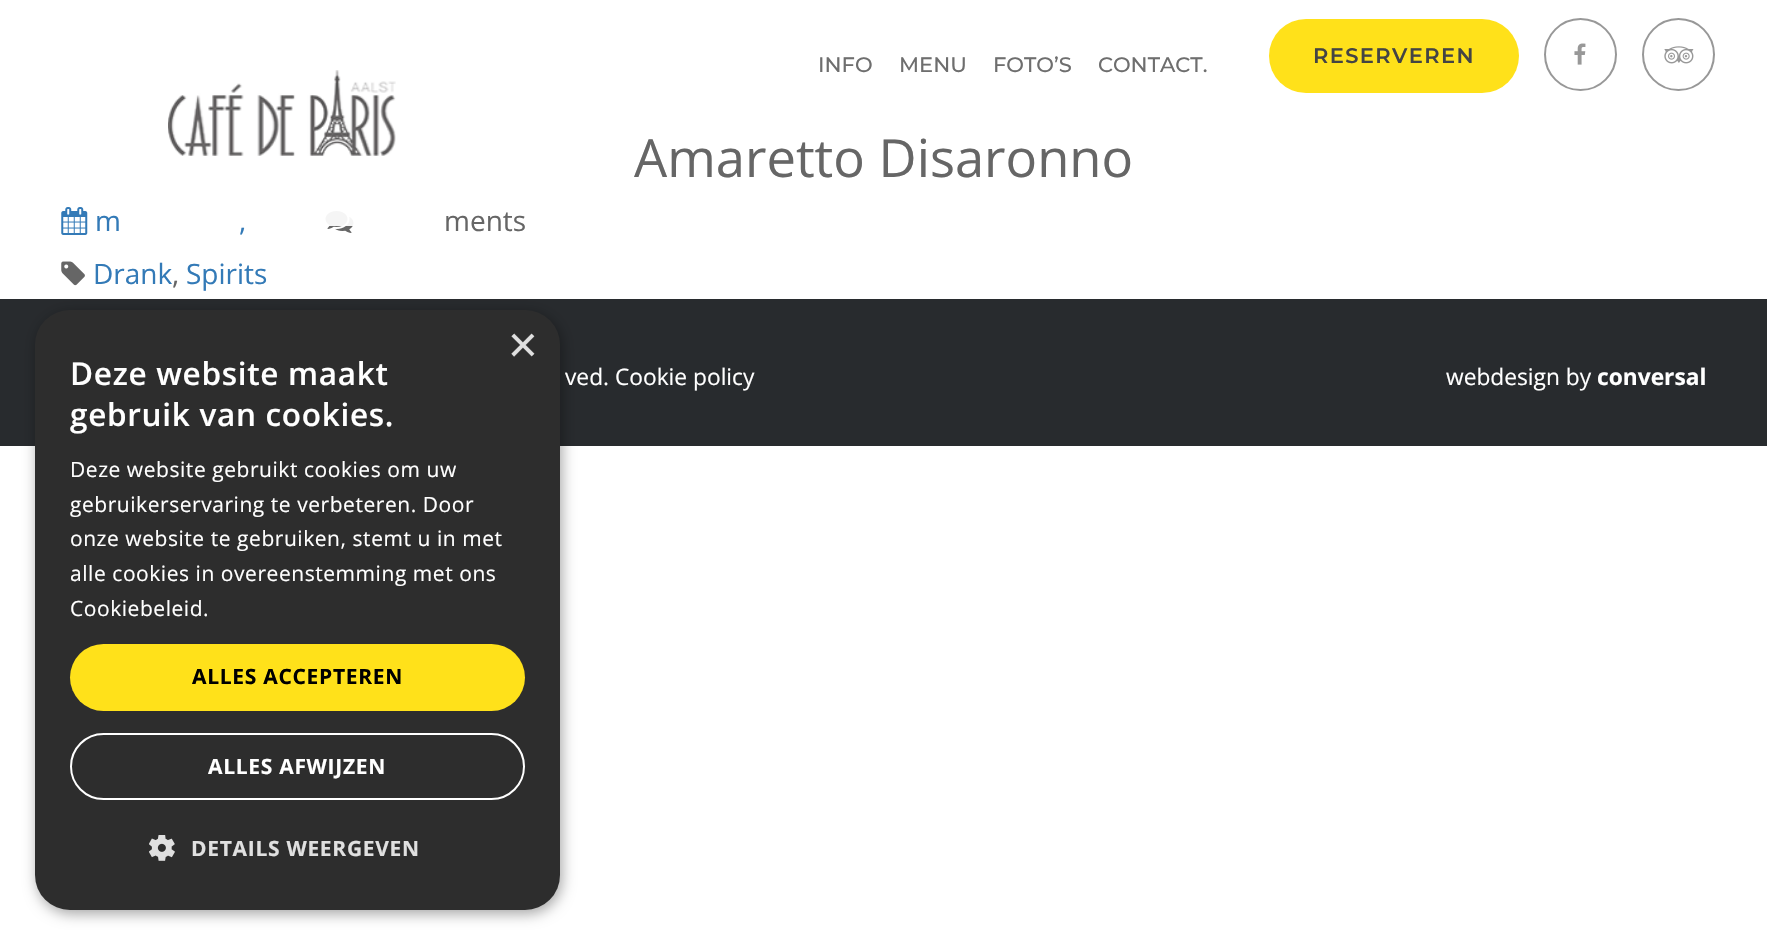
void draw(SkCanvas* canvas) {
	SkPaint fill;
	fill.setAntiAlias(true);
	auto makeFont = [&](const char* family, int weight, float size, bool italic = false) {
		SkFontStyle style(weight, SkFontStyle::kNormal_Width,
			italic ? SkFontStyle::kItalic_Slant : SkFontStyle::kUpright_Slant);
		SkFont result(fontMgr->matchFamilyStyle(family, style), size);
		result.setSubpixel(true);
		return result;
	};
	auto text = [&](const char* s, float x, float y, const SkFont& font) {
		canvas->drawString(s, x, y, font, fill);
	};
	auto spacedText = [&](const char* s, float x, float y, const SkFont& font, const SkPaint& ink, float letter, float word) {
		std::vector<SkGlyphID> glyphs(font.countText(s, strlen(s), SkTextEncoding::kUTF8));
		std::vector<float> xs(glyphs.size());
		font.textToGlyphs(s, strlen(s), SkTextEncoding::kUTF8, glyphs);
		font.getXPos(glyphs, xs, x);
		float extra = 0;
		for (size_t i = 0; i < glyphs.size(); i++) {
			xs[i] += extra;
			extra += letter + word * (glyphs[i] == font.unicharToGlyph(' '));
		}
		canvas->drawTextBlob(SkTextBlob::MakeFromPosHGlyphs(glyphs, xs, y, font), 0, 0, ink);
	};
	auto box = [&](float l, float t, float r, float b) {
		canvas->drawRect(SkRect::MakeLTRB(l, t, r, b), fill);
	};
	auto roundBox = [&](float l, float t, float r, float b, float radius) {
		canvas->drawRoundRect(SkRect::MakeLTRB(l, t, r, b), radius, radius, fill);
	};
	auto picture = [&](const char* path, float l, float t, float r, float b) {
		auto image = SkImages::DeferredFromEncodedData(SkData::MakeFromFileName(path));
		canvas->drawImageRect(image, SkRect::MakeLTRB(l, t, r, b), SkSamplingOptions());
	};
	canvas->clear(0xFFFFFFFF);
	fill.setColor(0xFFFFE11A);
	roundBox(1269, 19, 1519, 93, 37);
	fill.setStyle(SkPaint::kStroke_Style);
	fill.setStrokeWidth(2);
	fill.setColor(0xFF989898);
	canvas->drawCircle(1580.5f, 54.5f, 35.5f, fill);
	picture("image0.png", 1574, 43, 1586, 65);
	canvas->drawCircle(1678.5f, 54.5f, 35.5f, fill);
	picture("image1.png", 1664, 46, 1694, 64);
	picture("image4.png", 325, 211, 354, 233);
	fill.setStyle(SkPaint::kFill_Style);
	fill.setColor(0xEDFFFFFF);
	box(325, 211, 354, 226);
	picture("image2.png", 168, 70, 396, 156);
	picture("image3.png", 61, 207, 88, 235);
	picture("image5.png", 61, 261, 85, 286);
	fill.setColor(0xFF282B2E);
	box(0, 299, 1767, 446);
	fill.setColor(0x59000000);
	fill.setMaskFilter(SkMaskFilter::MakeBlur(kNormal_SkBlurStyle, 7));
	canvas->drawRoundRect(SkRect::MakeLTRB(37, 313, 562, 914), 35, 35, fill);
	fill.setMaskFilter(nullptr);
	fill.setColor(0xFF2D2D2D);
	roundBox(35, 310, 560, 910, 35);
	fill.setColor(0xFFFFE11A);
	roundBox(70, 644, 525, 711, 33.5f);
	fill.setStyle(SkPaint::kStroke_Style);
	fill.setColor(0xFFFFFFFF);
	canvas->drawRoundRect(SkRect::MakeLTRB(71, 734, 524, 799), 32.5f, 32.5f, fill);
	picture("image6.png", 149, 835, 175, 861);
	auto font1 = makeFont("Montserrat", 500, 21);
	fill.setStyle(SkPaint::kFill_Style);
	fill.setColor(0xFF6E6E6E);
	text("INFO", 818, 72, font1);
	text("MENU", 899, 72, font1);
	text("FOTO’S", 993, 72, font1);
	text("CONTACT.", 1098, 72, font1);
	auto font2 = makeFont("Montserrat", 600, 21);
	fill.setColor(0xFF444444);
	spacedText("RESERVEREN", 1313, 63, font2, fill, 1.4f, 0);
	auto font3 = makeFont("Open Sans", 400, 52.5f);
	fill.setColor(0xFF666666);
	text("Amaretto Disaronno", 634, 177, font3);
	auto font4 = makeFont("Open Sans", 400, 28);
	fill.setColor(0xFF337AB7);
	text("m", 95, 231, font4);
	text(",", 239, 231, font4);
	fill.setColor(0xFF666666);
	text("ments", 444, 231, font4);
	fill.setColor(0xFF337AB7);
	text("Drank", 93, 284, font4);
	fill.setColor(0xFF666666);
	text(",", 172, 284, font4);
	fill.setColor(0xFF337AB7);
	text("Spirits", 186, 284, font4);
	auto font5 = makeFont("Liberation Sans", 400, 51);
	fill.setColor(0xFFE0E0E0);
	text("×", 508, 362, font5);
	auto font6 = makeFont("Open Sans", 600, 31.5f);
	fill.setColor(0xFFFFFFFF);
	spacedText("Deze website maakt", 70, 385, font6, fill, 0.7f, 0);
	spacedText("gebruik van cookies.", 70, 426, font6, fill, 0.7f, 0);
	auto font7 = makeFont("Open Sans", 400, 21);
	spacedText("Deze website gebruikt cookies om uw", 70, 477, font7, fill, 0.55f, 0);
	spacedText("gebruikerservaring te verbeteren. Door", 70, 512, font7, fill, 0.55f, 0);
	spacedText("onze website te gebruiken, stemt u in met", 70, 546, font7, fill, 0.55f, 0);
	spacedText("alle cookies in overeenstemming met ons", 70, 581, font7, fill, 0.55f, 0);
	spacedText("Cookiebeleid.", 70, 616, font7, fill, 0.55f, 0);
	auto font8 = makeFont("Open Sans", 700, 21);
	fill.setColor(0xFF000000);
	spacedText("ALLES ACCEPTEREN", 192, 684, font8, fill, 0.7f, 0);
	fill.setColor(0xFFFFFFFF);
	spacedText("ALLES AFWIJZEN", 208, 774, font8, fill, 0.7f, 0);
	fill.setColor(0xFFE0E0E0);
	spacedText("DETAILS WEERGEVEN", 191, 856, font8, fill, 0.7f, 0);
	auto font9 = makeFont("Open Sans", 400, 22.75f);
	fill.setColor(0xFFFFFFFF);
	text("ved. Cookie policy", 565, 385, font9);
	text("webdesign by", 1446, 385, font9);
	auto font10 = makeFont("Open Sans", 700, 22.75f);
	text("conversal", 1597, 385, font10);
}
